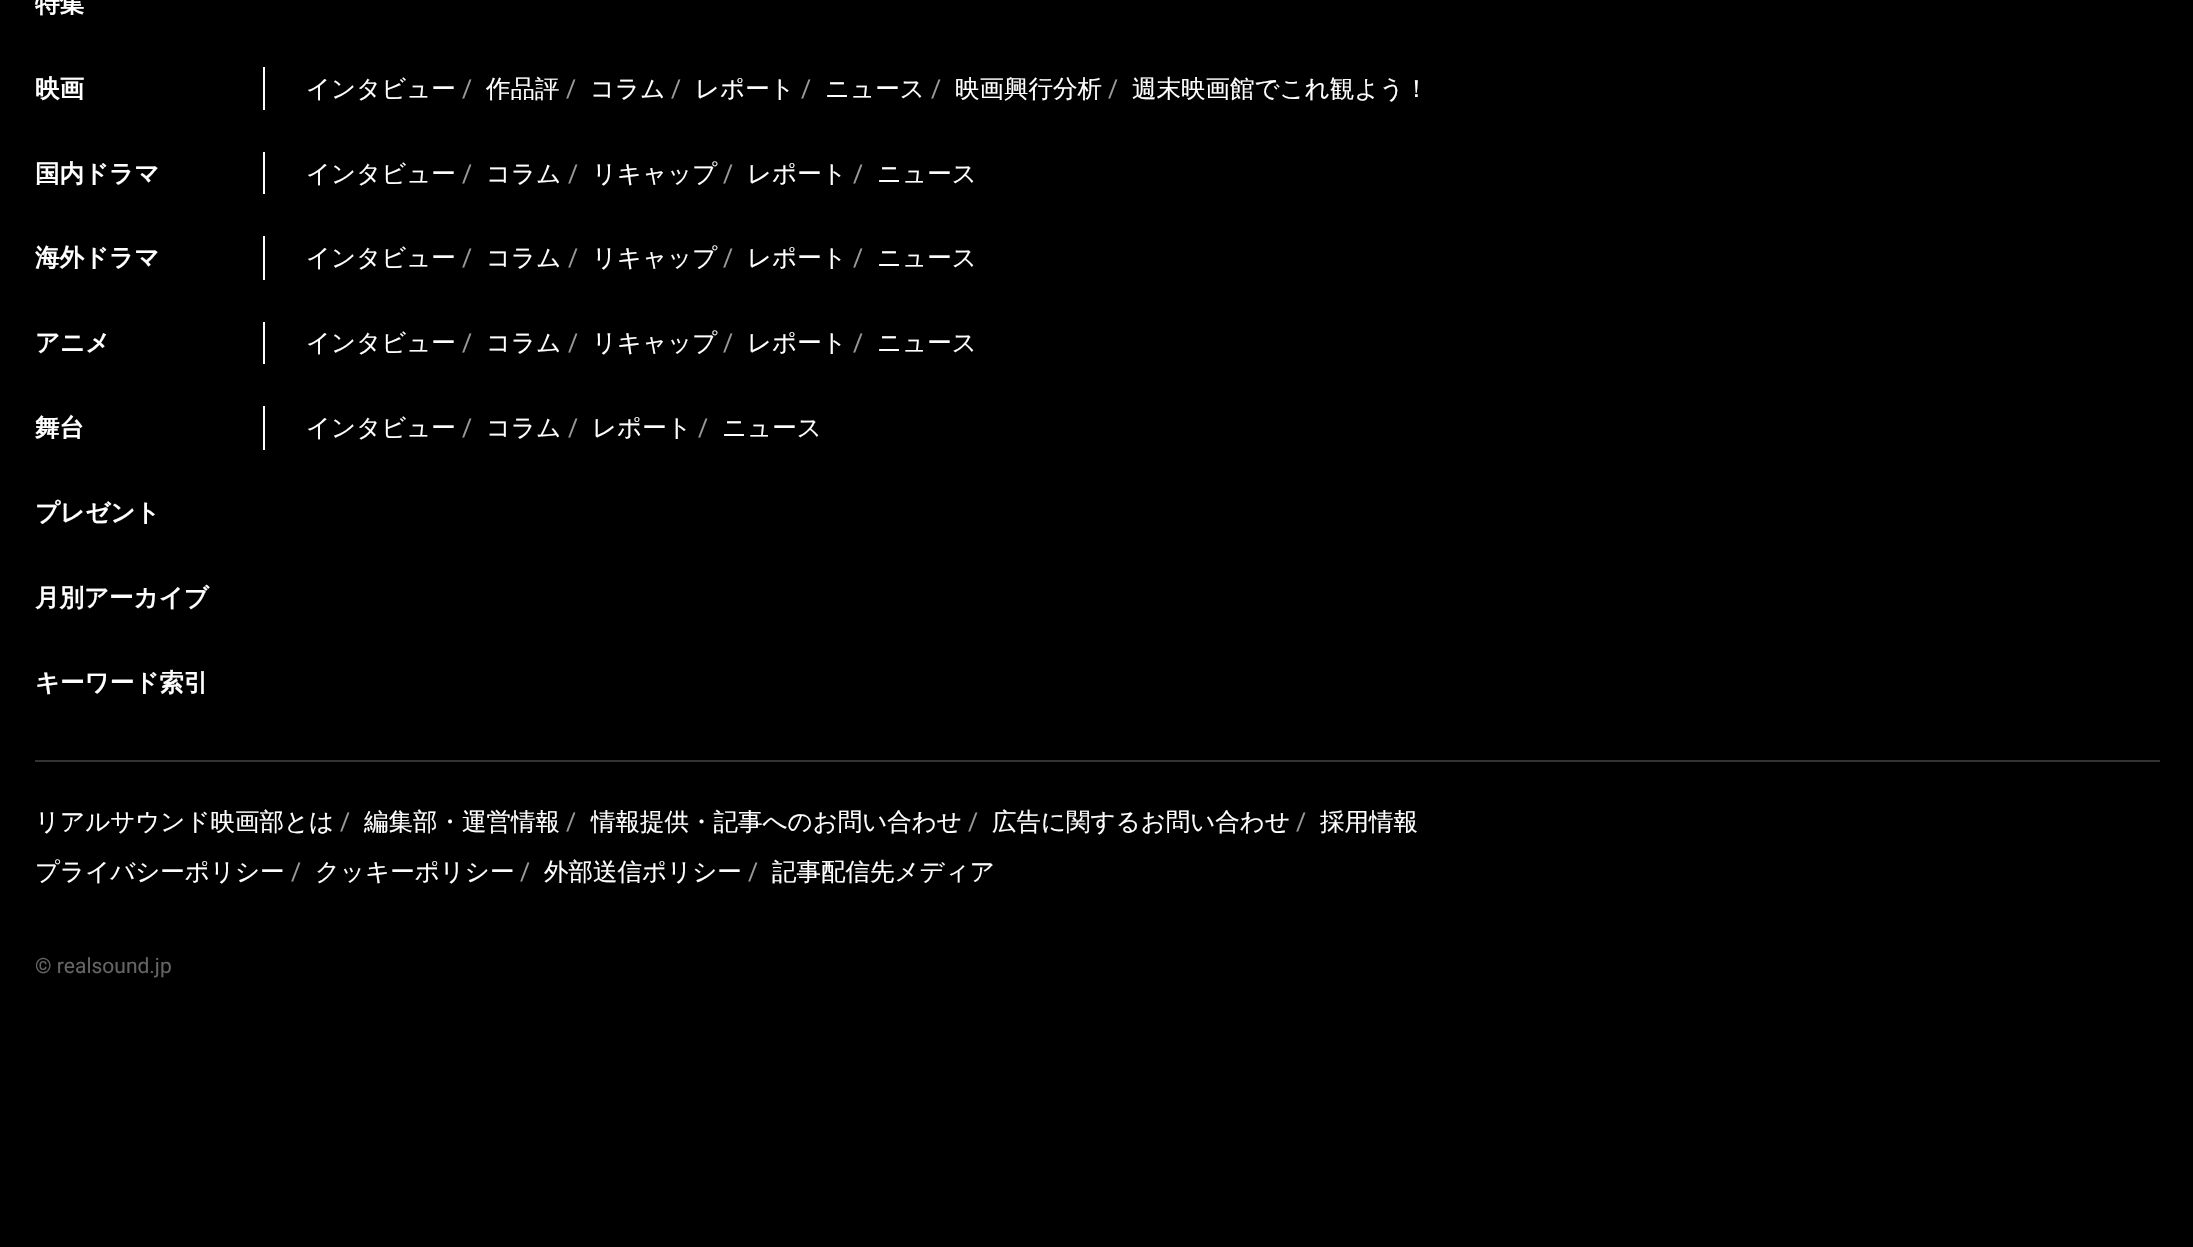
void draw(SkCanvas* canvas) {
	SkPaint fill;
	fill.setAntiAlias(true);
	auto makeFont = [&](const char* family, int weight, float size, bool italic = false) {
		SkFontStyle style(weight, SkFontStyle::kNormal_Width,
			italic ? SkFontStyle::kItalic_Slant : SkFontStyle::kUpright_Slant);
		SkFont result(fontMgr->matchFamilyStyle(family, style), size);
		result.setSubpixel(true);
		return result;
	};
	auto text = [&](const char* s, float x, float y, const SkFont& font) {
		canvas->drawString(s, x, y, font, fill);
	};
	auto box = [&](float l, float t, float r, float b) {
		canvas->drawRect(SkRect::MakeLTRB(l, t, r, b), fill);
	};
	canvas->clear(0xFF000000);
	fill.setColor(0xFFFFFFFF);
	box(263, 67, 265, 110);
	box(263, 152, 265, 194);
	box(263, 236, 265, 280);
	box(263, 322, 265, 364);
	box(263, 406, 265, 450);
	fill.setColor(0xFF333333);
	box(35, 760, 2160, 762);
	auto font1 = makeFont("WenQuanYi Zen Hei", 700, 24.5f);
	fill.setColor(0xFFFFFFFF);
	text("特集", 35, 12, font1);
	text("映画", 35, 97, font1);
	auto font2 = makeFont("WenQuanYi Zen Hei", 500, 24.5f);
	text("インタビュー", 306, 97, font2);
	auto font3 = makeFont("Roboto", 400, 24.5f);
	fill.setColor(0xFF999999);
	text("/", 462, 97, font3);
	fill.setColor(0xFFFFFFFF);
	text("作品評", 486, 97, font2);
	fill.setColor(0xFF999999);
	text("/", 566, 97, font3);
	fill.setColor(0xFFFFFFFF);
	text("コラム", 590, 97, font2);
	fill.setColor(0xFF999999);
	text("/", 671, 97, font3);
	fill.setColor(0xFFFFFFFF);
	text("レポート", 695, 97, font2);
	fill.setColor(0xFF999999);
	text("/", 801, 97, font3);
	fill.setColor(0xFFFFFFFF);
	text("ニュース", 825, 97, font2);
	fill.setColor(0xFF999999);
	text("/", 931, 97, font3);
	fill.setColor(0xFFFFFFFF);
	text("映画興行分析", 955, 97, font2);
	fill.setColor(0xFF999999);
	text("/", 1108, 97, font3);
	fill.setColor(0xFFFFFFFF);
	text("週末映画館でこれ観よう！", 1132, 97, font2);
	text("国内ドラマ", 35, 182, font1);
	text("インタビュー", 306, 182, font2);
	fill.setColor(0xFF999999);
	text("/", 462, 182, font3);
	fill.setColor(0xFFFFFFFF);
	text("コラム", 486, 182, font2);
	fill.setColor(0xFF999999);
	text("/", 568, 182, font3);
	fill.setColor(0xFFFFFFFF);
	text("リキャップ", 592, 182, font2);
	fill.setColor(0xFF999999);
	text("/", 723, 182, font3);
	fill.setColor(0xFFFFFFFF);
	text("レポート", 747, 182, font2);
	fill.setColor(0xFF999999);
	text("/", 853, 182, font3);
	fill.setColor(0xFFFFFFFF);
	text("ニュース", 877, 182, font2);
	text("海外ドラマ", 35, 266, font1);
	text("インタビュー", 306, 266, font2);
	fill.setColor(0xFF999999);
	text("/", 462, 266, font3);
	fill.setColor(0xFFFFFFFF);
	text("コラム", 486, 266, font2);
	fill.setColor(0xFF999999);
	text("/", 568, 266, font3);
	fill.setColor(0xFFFFFFFF);
	text("リキャップ", 592, 266, font2);
	fill.setColor(0xFF999999);
	text("/", 723, 266, font3);
	fill.setColor(0xFFFFFFFF);
	text("レポート", 747, 266, font2);
	fill.setColor(0xFF999999);
	text("/", 853, 266, font3);
	fill.setColor(0xFFFFFFFF);
	text("ニュース", 877, 266, font2);
	text("アニメ", 35, 351, font1);
	text("インタビュー", 306, 351, font2);
	fill.setColor(0xFF999999);
	text("/", 462, 351, font3);
	fill.setColor(0xFFFFFFFF);
	text("コラム", 486, 351, font2);
	fill.setColor(0xFF999999);
	text("/", 568, 351, font3);
	fill.setColor(0xFFFFFFFF);
	text("リキャップ", 592, 351, font2);
	fill.setColor(0xFF999999);
	text("/", 723, 351, font3);
	fill.setColor(0xFFFFFFFF);
	text("レポート", 747, 351, font2);
	fill.setColor(0xFF999999);
	text("/", 853, 351, font3);
	fill.setColor(0xFFFFFFFF);
	text("ニュース", 877, 351, font2);
	text("舞台", 35, 436, font1);
	text("インタビュー", 306, 436, font2);
	fill.setColor(0xFF999999);
	text("/", 462, 436, font3);
	fill.setColor(0xFFFFFFFF);
	text("コラム", 486, 436, font2);
	fill.setColor(0xFF999999);
	text("/", 568, 436, font3);
	fill.setColor(0xFFFFFFFF);
	text("レポート", 592, 436, font2);
	fill.setColor(0xFF999999);
	text("/", 698, 436, font3);
	fill.setColor(0xFFFFFFFF);
	text("ニュース", 722, 436, font2);
	text("プレゼント", 35, 521, font1);
	text("月別アーカイブ", 35, 606, font1);
	text("キーワード索引", 35, 691, font1);
	text("リアルサウンド映画部とは", 35, 830, font2);
	fill.setColor(0xFF999999);
	text("/", 340, 830, font3);
	fill.setColor(0xFFFFFFFF);
	text("編集部・運営情報", 364, 830, font2);
	fill.setColor(0xFF999999);
	text("/", 566, 830, font3);
	fill.setColor(0xFFFFFFFF);
	text("情報提供・記事へのお問い合わせ", 591, 830, font2);
	fill.setColor(0xFF999999);
	text("/", 968, 830, font3);
	fill.setColor(0xFFFFFFFF);
	text("広告に関するお問い合わせ", 992, 830, font2);
	fill.setColor(0xFF999999);
	text("/", 1296, 830, font3);
	fill.setColor(0xFFFFFFFF);
	text("採用情報", 1320, 830, font2);
	text("プライバシーポリシー", 35, 880, font2);
	fill.setColor(0xFF999999);
	text("/", 291, 880, font3);
	fill.setColor(0xFFFFFFFF);
	text("クッキーポリシー", 315, 880, font2);
	fill.setColor(0xFF999999);
	text("/", 520, 880, font3);
	fill.setColor(0xFFFFFFFF);
	text("外部送信ポリシー", 544, 880, font2);
	fill.setColor(0xFF999999);
	text("/", 748, 880, font3);
	fill.setColor(0xFFFFFFFF);
	text("記事配信先メディア", 772, 880, font2);
	auto font4 = makeFont("Roboto", 400, 21);
	fill.setColor(0xFF656565);
	text("© realsound.jp", 35, 973, font4);
}
